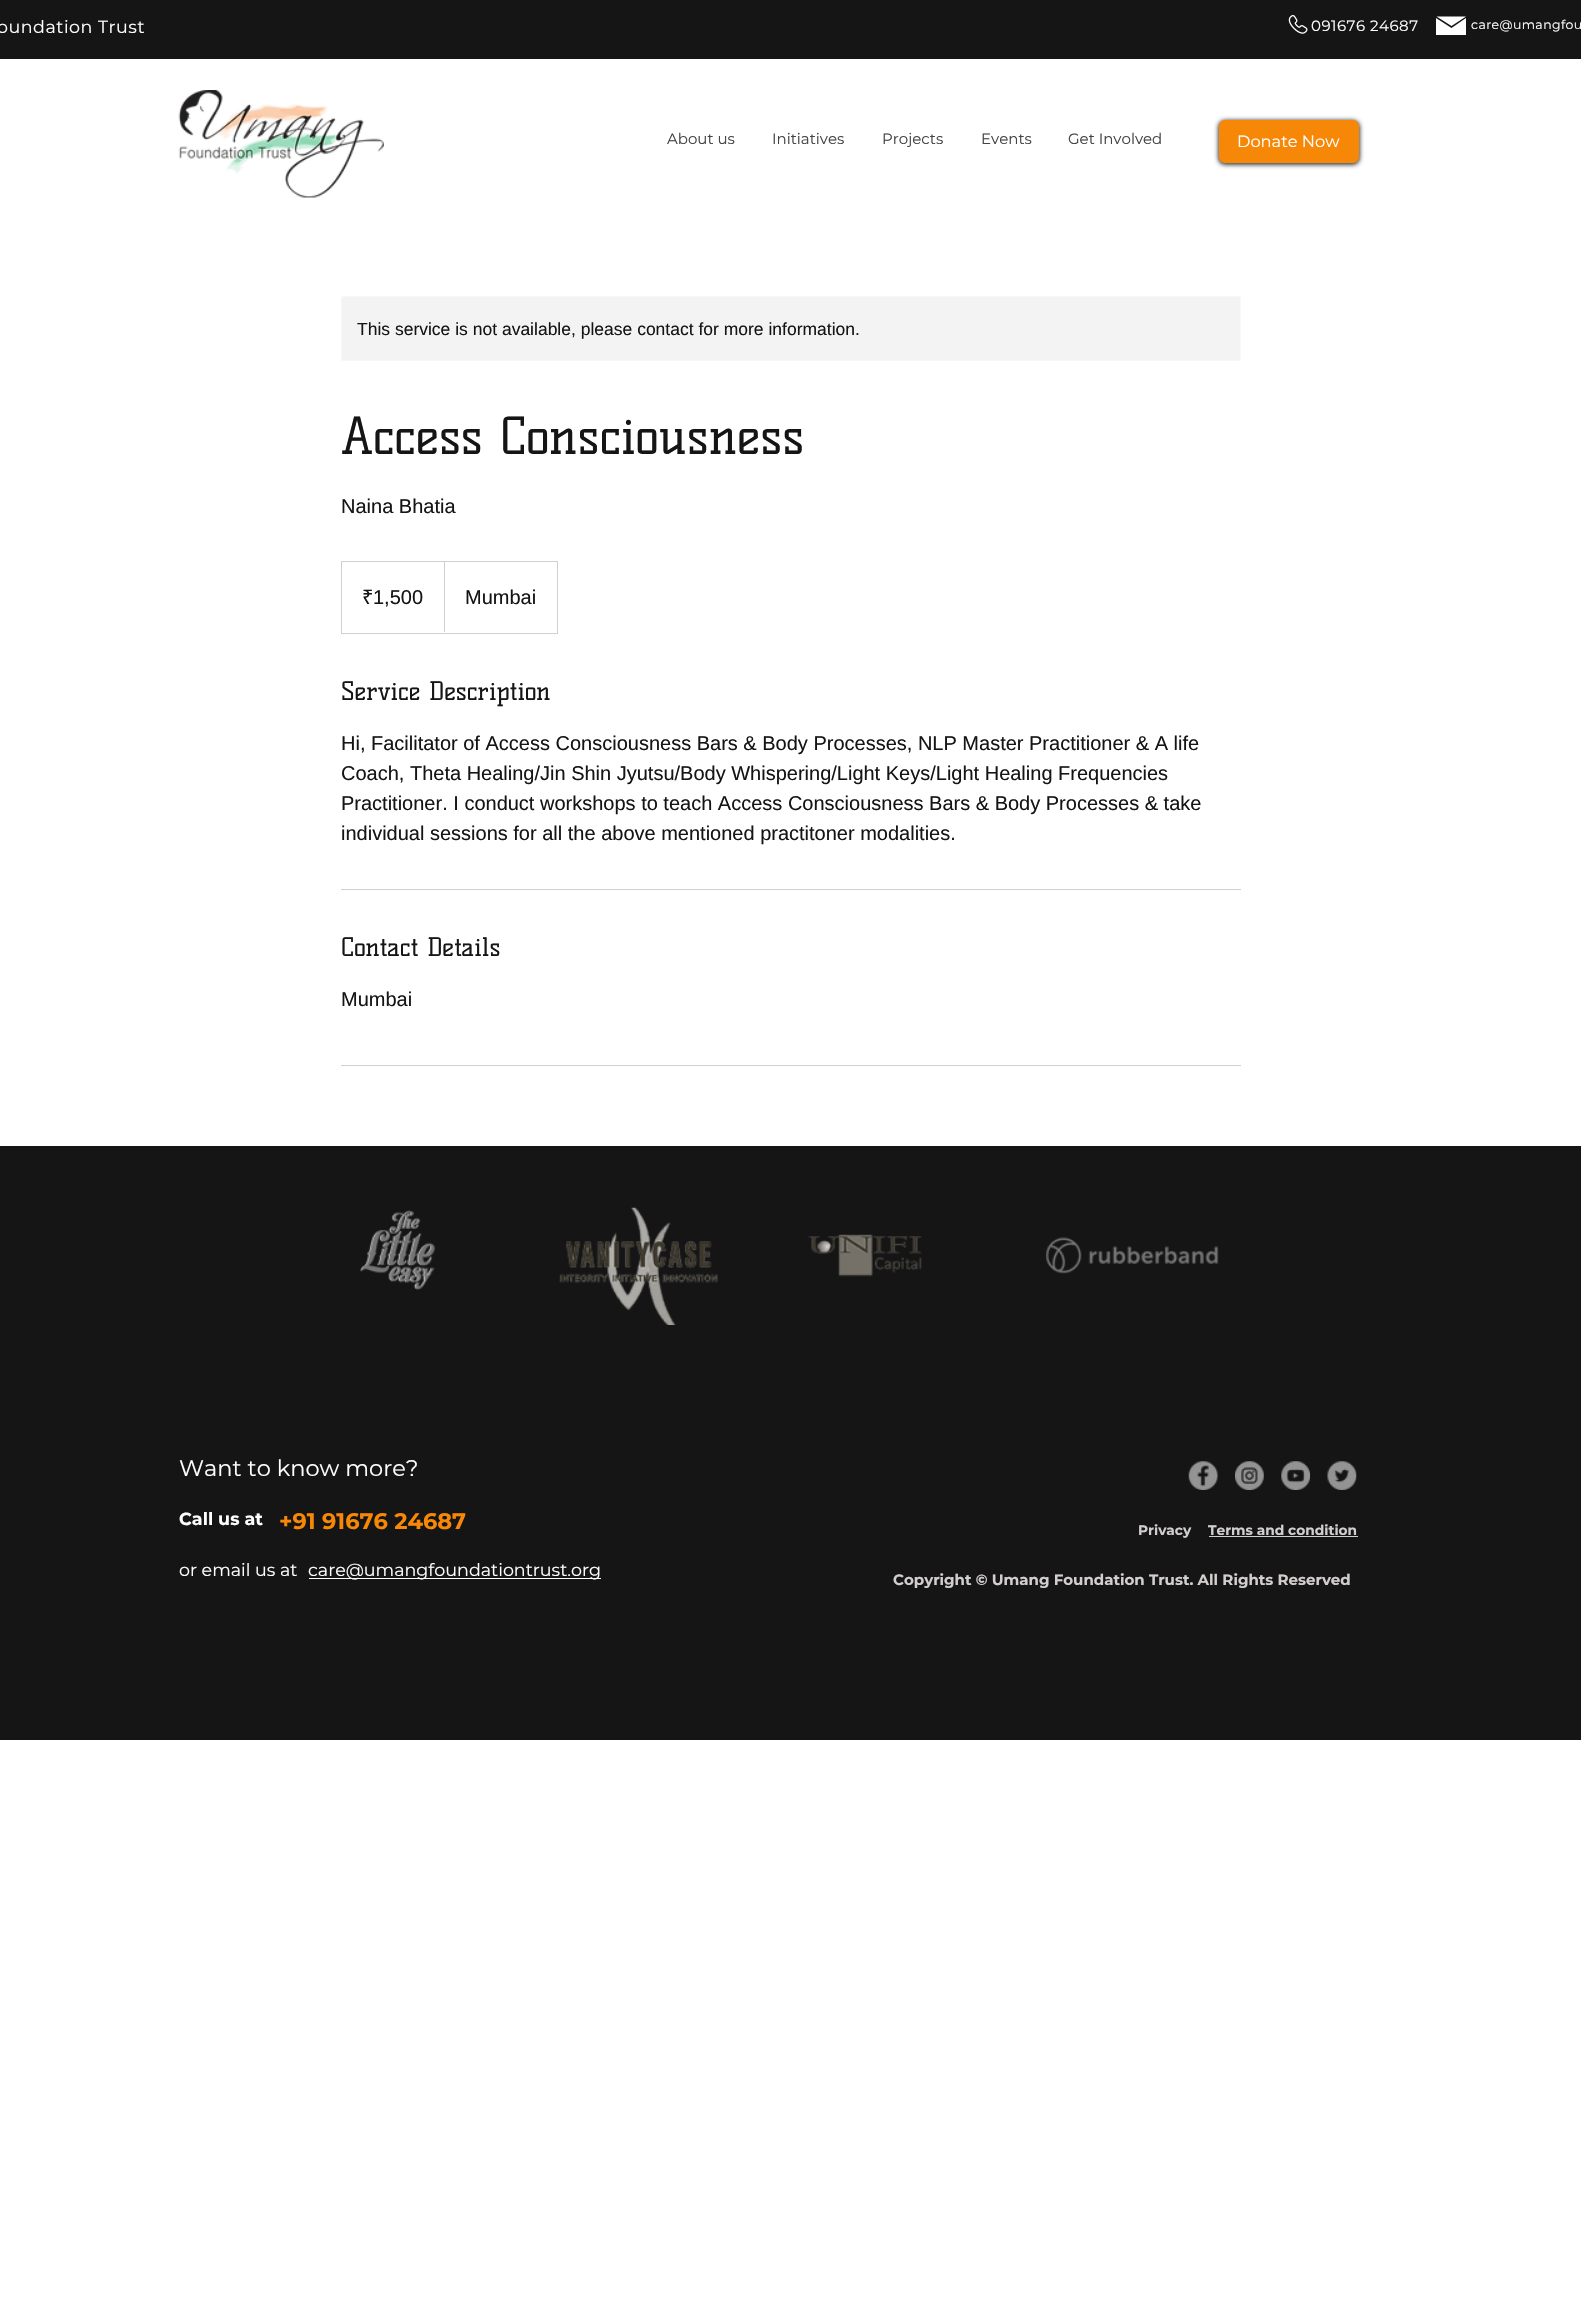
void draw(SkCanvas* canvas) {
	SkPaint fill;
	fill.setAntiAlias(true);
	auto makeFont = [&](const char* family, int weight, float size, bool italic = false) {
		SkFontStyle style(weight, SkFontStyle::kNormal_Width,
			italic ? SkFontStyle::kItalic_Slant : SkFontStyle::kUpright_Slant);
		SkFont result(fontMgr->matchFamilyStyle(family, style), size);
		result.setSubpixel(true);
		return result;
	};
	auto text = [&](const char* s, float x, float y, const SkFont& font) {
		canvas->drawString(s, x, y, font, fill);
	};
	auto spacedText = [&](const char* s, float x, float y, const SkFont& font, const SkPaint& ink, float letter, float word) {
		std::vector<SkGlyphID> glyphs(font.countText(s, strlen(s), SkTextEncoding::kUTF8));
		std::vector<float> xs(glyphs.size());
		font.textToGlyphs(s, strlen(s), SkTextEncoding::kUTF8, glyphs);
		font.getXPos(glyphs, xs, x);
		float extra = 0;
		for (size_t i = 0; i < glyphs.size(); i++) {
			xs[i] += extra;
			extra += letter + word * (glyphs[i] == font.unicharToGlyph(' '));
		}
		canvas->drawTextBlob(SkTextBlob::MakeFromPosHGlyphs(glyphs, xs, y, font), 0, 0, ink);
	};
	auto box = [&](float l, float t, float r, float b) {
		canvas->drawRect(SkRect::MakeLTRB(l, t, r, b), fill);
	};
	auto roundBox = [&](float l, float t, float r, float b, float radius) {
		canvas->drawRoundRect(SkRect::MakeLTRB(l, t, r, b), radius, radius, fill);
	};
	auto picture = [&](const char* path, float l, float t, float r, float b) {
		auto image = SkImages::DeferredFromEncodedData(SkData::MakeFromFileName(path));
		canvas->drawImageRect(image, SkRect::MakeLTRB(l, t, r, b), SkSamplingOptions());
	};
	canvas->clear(0xFFFFFFFF);
	fill.setColor(0xFF161515);
	box(0, 0, 1581, 59);
	picture("image0.png", 1288, 15, 1308, 34);
	fill.setColor(0xFFFFFFFF);
	canvas->drawPath(SkPathBuilder().moveTo(1451.5f, 26).lineTo(1436.5f, 16.5f).lineTo(1466, 16.5f).close().moveTo(1466, 18).lineTo(1451.5f, 28).lineTo(1436, 18).lineTo(1436, 35).lineTo(1466, 35).close().detach(), fill);
	picture("image1.png", 178, 90, 384, 198);
	fill.setColor(0x99000000);
	fill.setMaskFilter(SkMaskFilter::MakeBlur(kNormal_SkBlurStyle, 2.5f));
	canvas->drawRoundRect(SkRect::MakeLTRB(1219, 121, 1359, 164), 6, 6, fill);
	fill.setMaskFilter(nullptr);
	fill.setMaskFilter(SkMaskFilter::MakeBlur(kNormal_SkBlurStyle, 2.5f));
	canvas->drawRoundRect(SkRect::MakeLTRB(1219, 121, 1359, 164), 6, 6, fill);
	fill.setMaskFilter(nullptr);
	fill.setColor(0xFFF78707);
	roundBox(1219, 120, 1359, 163, 6);
	fill.setColor(0xFFF3F3F3);
	roundBox(341, 296, 1241, 361, 2.5f);
	fill.setStyle(SkPaint::kStroke_Style);
	fill.setStrokeWidth(1);
	fill.setColor(0x66FFFFFF);
	canvas->drawRoundRect(SkRect::MakeLTRB(341.5f, 296.5f, 1240.5f, 360.5f), 2, 2, fill);
	fill.setColor(0xFFD0D0D0);
	canvas->drawRect(SkRect::MakeLTRB(341.5f, 561.5f, 557.5f, 633.5f), fill);
	fill.setStyle(SkPaint::kFill_Style);
	canvas->drawPath(SkPathBuilder().moveTo(444, 632).lineTo(444, 561).lineTo(445, 562).lineTo(445, 632).close().detach(), fill);
	box(341, 889, 1241, 890);
	box(341, 1065, 1241, 1066);
	fill.setColor(0xFF161515);
	box(0, 1146, 1581, 1740);
	picture("image2.png", 360, 1210, 436, 1290);
	picture("image3.png", 559, 1207, 718, 1325);
	picture("image4.png", 807, 1234, 922, 1277);
	picture("image5.png", 1045, 1237, 1219, 1274);
	fill.setColor(0xFFFFFFFF);
	box(309, 1578, 601, 1579);
	picture("image6.png", 1188, 1461, 1218, 1490);
	picture("image7.png", 1235, 1461, 1264, 1490);
	picture("image8.png", 1281, 1461, 1310, 1490);
	picture("image9.png", 1327, 1461, 1357, 1490);
	fill.setColor(0xFFD2CECE);
	box(1209, 1536, 1358, 1537);
	auto font1 = makeFont("Montserrat", 400, 17.5f);
	fill.setColor(0xFFFFFFFF);
	spacedText("oundation Trust", -3, 33, font1, fill, 0.5f, 0);
	auto font2 = makeFont("Montserrat", 400, 15);
	spacedText("091676 24687", 1311, 31, font2, fill, 0.5f, 0);
	auto font3 = makeFont("Montserrat", 400, 12.5f);
	spacedText("care@umangfou", 1471, 29, font3, fill, 0.4f, 0);
	fill.setColor(0xFF454242);
	text("About us", 667, 144, font2);
	text("Initiatives", 772, 144, font2);
	text("Projects", 882, 144, font2);
	text("Events", 981, 144, font2);
	text("Get Involved", 1068, 144, font2);
	auto font4 = makeFont("Montserrat", 400, 16.25f);
	fill.setColor(0xFFFFFFFF);
	text("Donate Now", 1237, 147, font4);
	auto font5 = makeFont("Liberation Sans", 400, 17.5f);
	fill.setColor(0xFF161515);
	text("This service is not available, please contact for more information.", 357, 335, font5);
	auto font6 = makeFont("Kelly Slab", 400, 50);
	text("Access Consciousness", 341, 454, font6);
	auto font7 = makeFont("Liberation Sans", 400, 20);
	text("Naina Bhatia", 341, 513, font7);
	auto font8 = makeFont("Noto Sans", 400, 20);
	text("₹", 362, 604, font8);
	text("1,500", 373, 604, font7);
	text("Mumbai", 465, 604, font7);
	auto font9 = makeFont("Kelly Slab", 400, 25);
	text("Service Description", 341, 700, font9);
	text("Hi, Facilitator of Access Consciousness Bars & Body Processes, NLP Master Practitioner & A life", 341, 750, font7);
	text("Coach, Theta Healing/Jin Shin Jyutsu/Body Whispering/Light Keys/Light Healing Frequencies", 341, 780, font7);
	text("Practitioner. I conduct workshops to teach Access Consciousness Bars & Body Processes & take", 341, 810, font7);
	text("individual sessions for all the above mentioned practitoner modalities.", 341, 840, font7);
	text("Contact Details", 341, 956, font9);
	text("Mumbai", 341, 1006, font7);
	auto font10 = makeFont("Montserrat", 400, 22.5f);
	fill.setColor(0xFFFFFFFF);
	text("Want to know more?", 179, 1476, font10);
	auto font11 = makeFont("Montserrat", 700, 17.5f);
	text("Call us at", 179, 1525, font11);
	auto font12 = makeFont("Montserrat", 700, 22.5f);
	fill.setColor(0xFFF78707);
	text("+91 91676 24687", 279, 1529, font12);
	fill.setColor(0xFFFFFFFF);
	text("or email us at", 179, 1576, font1);
	text("care@umangfoundationtrust.org", 308, 1576, font1);
	auto font13 = makeFont("Montserrat", 700, 13.75f);
	fill.setColor(0xFFD2CECE);
	text("Privacy", 1138, 1535, font13);
	text("Terms and condition", 1208, 1535, font13);
	auto font14 = makeFont("Montserrat", 700, 15);
	text("Copyright © Umang Foundation Trust. All Rights Reserved", 893, 1585, font14);
}
